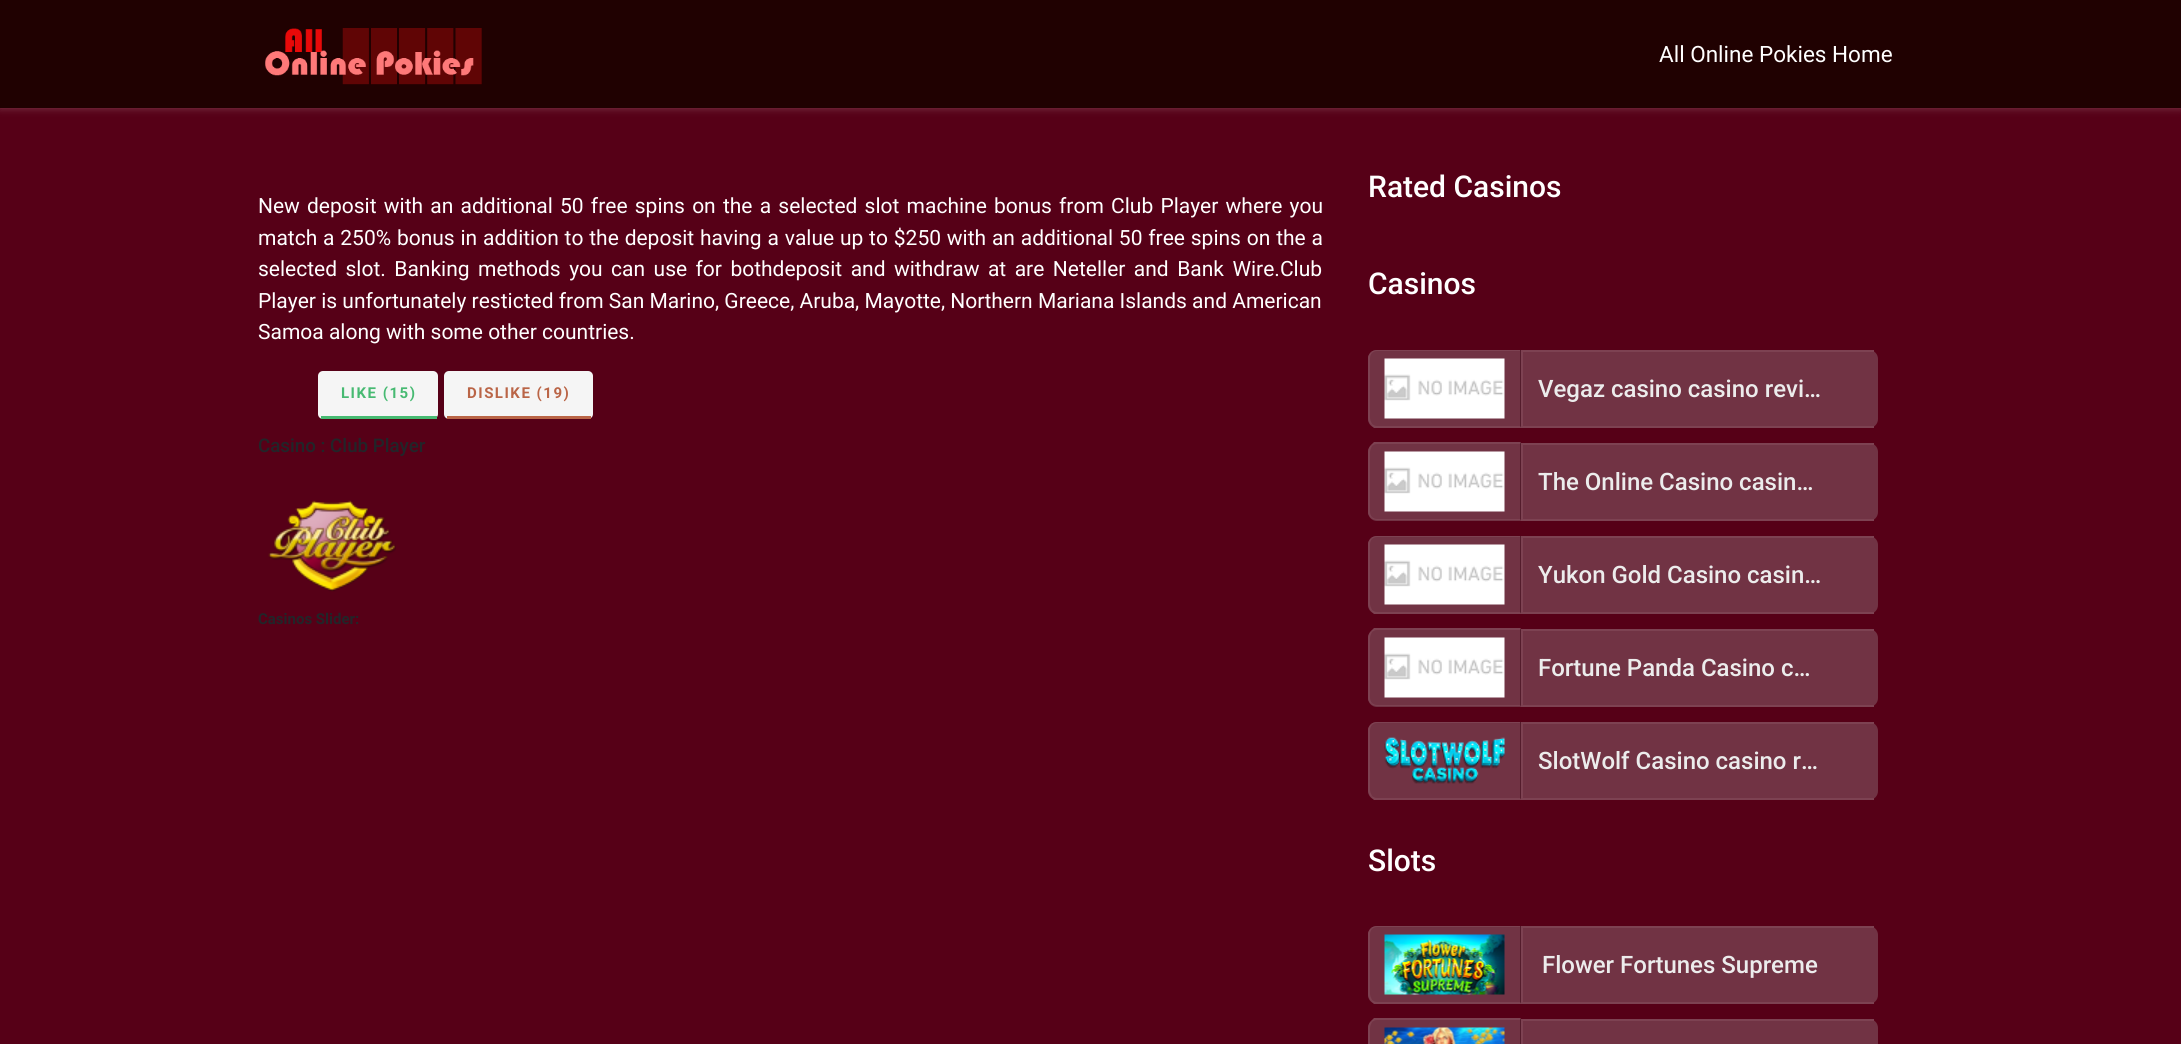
#include <cairo/cairo.h>
#include <math.h>
#include <stddef.h>

static cairo_t *cr;

static void use_color(int r, int g, int b) {
  cairo_set_source_rgb(cr, r / 255.0, g / 255.0, b / 255.0);
}

static void text(double x, double y, const char *s, const char *family, double size, int italic, int bold, int r, int g, int b) {
  cairo_select_font_face(cr, family, italic ? CAIRO_FONT_SLANT_ITALIC : CAIRO_FONT_SLANT_NORMAL,
    bold ? CAIRO_FONT_WEIGHT_BOLD : CAIRO_FONT_WEIGHT_NORMAL);
  cairo_set_font_size(cr, size);
  use_color(r, g, b);
  cairo_move_to(cr, x, y);
  cairo_show_text(cr, s);
}

static void spaced_text(double x, double y, const char *s, double letter, double word) {
  cairo_move_to(cr, x, y);
  while (*s) {
    char ch[5] = {0};
    int n = 0;
    do ch[n++] = *s++; while ((*s & 0xC0) == 0x80);
    cairo_show_text(cr, ch);
    cairo_rel_move_to(cr, letter + word * (*ch == ' '), 0);
  }
}

static void box(double x, double y, double w, double h, int r, int g, int b) {
  use_color(r, g, b);
  cairo_rectangle(cr, x, y, w, h);
  cairo_fill(cr);
}

static void round_rect(double x, double y, double w, double h, double r) {
  cairo_new_sub_path(cr);
  cairo_arc(cr, x + w - r, y + h - r, r, 0, M_PI / 2);
  cairo_arc(cr, x + r, y + h - r, r, M_PI / 2, M_PI);
  cairo_arc(cr, x + r, y + r, r, M_PI, 1.5 * M_PI);
  cairo_arc(cr, x + w - r, y + r, r, 1.5 * M_PI, 2 * M_PI);
  cairo_close_path(cr);
}

static void shadow(double x, double y, double w, double h, double r, double blur, double alpha) {
  cairo_push_group_with_content(cr, CAIRO_CONTENT_ALPHA);
  cairo_set_operator(cr, CAIRO_OPERATOR_SOURCE);
  for (int i = 15; i >= -15 && fmin(w, h) + blur * i / 3 > 0; i -= 2) {
    double e = blur * i / 6;
    cairo_set_source_rgba(cr, 0, 0, 0, alpha * erfc((i - 1) / 8.5) / 2);
    round_rect(x - e, y - e, w + 2 * e, h + 2 * e, fmax(0, fmin(r + e + blur * .6, fmin(w, h) / 2 + e)));
    cairo_fill(cr);
  }
  cairo_pattern_t *soft = cairo_pop_group(cr);
  cairo_mask(cr, soft);
  cairo_pattern_destroy(soft);
}

static void picture(const char *path, double x, double y, double w, double h) {
  cairo_surface_t *image = cairo_image_surface_create_from_png(path);
  cairo_save(cr);
  cairo_set_source_surface(cr, image, x, y);
  cairo_rectangle(cr, x, y, w, h);
  cairo_fill(cr);
  cairo_restore(cr);
  cairo_surface_destroy(image);
}

static void draw(void) {
  use_color(86, 0, 23);
  cairo_paint(cr);
  use_color(255, 255, 255);
  shadow(0, -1, 2181, 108, 0, 4.5, 0.3);
  box(0, 0, 2181, 108, 32, 1, 1);
  picture("img_01.png", 265, 28, 217, 57);
  use_color(245, 245, 245);
  round_rect(318, 371, 120, 48, 5);
  cairo_fill(cr);
  box(321, 416, 116, 3, 71, 186, 114);
  use_color(245, 245, 245);
  round_rect(444, 371, 149, 48, 5);
  cairo_fill(cr);
  box(447, 416, 144, 3, 186, 101, 71);
  picture("img_02.png", 268, 500, 128, 92);
  use_color(113, 51, 68);
  cairo_new_path(cr);
  cairo_move_to(cr, 1377, 350);
  cairo_line_to(cr, 1521, 350);
  cairo_line_to(cr, 1521, 428);
  cairo_line_to(cr, 1377, 428);
  cairo_curve_to(cr, 1372, 428, 1368, 424, 1368, 419);
  cairo_line_to(cr, 1368, 359);
  cairo_curve_to(cr, 1368, 354, 1372, 350, 1377, 350);
  cairo_close_path(cr);
  cairo_fill(cr);
  use_color(125, 66, 82);
  cairo_new_path(cr);
  cairo_move_to(cr, 1377, 350);
  cairo_curve_to(cr, 1375, 350, 1372, 351, 1371, 352);
  cairo_line_to(cr, 1372, 353);
  cairo_curve_to(cr, 1373, 352, 1375, 351, 1377, 351);
  cairo_line_to(cr, 1520, 351);
  cairo_line_to(cr, 1520, 350);
  cairo_close_path(cr);
  cairo_fill(cr);
  use_color(84, 28, 44);
  cairo_new_path(cr);
  cairo_move_to(cr, 1521, 428);
  cairo_line_to(cr, 1521, 350);
  cairo_line_to(cr, 1520, 350);
  cairo_line_to(cr, 1520, 351);
  cairo_line_to(cr, 1520, 426);
  cairo_close_path(cr);
  cairo_fill(cr);
  use_color(125, 66, 82);
  cairo_new_path(cr);
  cairo_move_to(cr, 1521, 428);
  cairo_line_to(cr, 1374, 428);
  cairo_line_to(cr, 1371, 425);
  cairo_line_to(cr, 1372, 424);
  cairo_curve_to(cr, 1373, 425, 1375, 426, 1377, 426);
  cairo_line_to(cr, 1520, 426);
  cairo_close_path(cr);
  cairo_fill(cr);
  cairo_new_path(cr);
  cairo_move_to(cr, 1368, 358);
  cairo_line_to(cr, 1368, 418);
  cairo_curve_to(cr, 1368, 420, 1369, 423, 1371, 425);
  cairo_line_to(cr, 1372, 424);
  cairo_curve_to(cr, 1371, 422, 1370, 420, 1370, 418);
  cairo_line_to(cr, 1370, 358);
  cairo_curve_to(cr, 1370, 356, 1371, 354, 1372, 353);
  cairo_line_to(cr, 1371, 352);
  cairo_curve_to(cr, 1369, 354, 1368, 356, 1368, 358);
  cairo_close_path(cr);
  cairo_fill(cr);
  picture("img_03.png", 1384, 358, 121, 61);
  use_color(113, 51, 68);
  cairo_new_path(cr);
  cairo_move_to(cr, 1521, 350);
  cairo_line_to(cr, 1869, 350);
  cairo_curve_to(cr, 1874, 350, 1878, 354, 1878, 359);
  cairo_line_to(cr, 1878, 419);
  cairo_curve_to(cr, 1878, 424, 1874, 428, 1869, 428);
  cairo_line_to(cr, 1521, 428);
  cairo_close_path(cr);
  cairo_fill(cr);
  box(1521, 350, 353, 2, 125, 66, 82);
  box(1521, 426, 353, 2, 125, 66, 82);
  box(1521, 350, 2, 78, 125, 66, 82);
  use_color(113, 51, 68);
  cairo_new_path(cr);
  cairo_move_to(cr, 1377, 443);
  cairo_line_to(cr, 1521, 443);
  cairo_line_to(cr, 1521, 521);
  cairo_line_to(cr, 1377, 521);
  cairo_curve_to(cr, 1372, 521, 1368, 517, 1368, 512);
  cairo_line_to(cr, 1368, 452);
  cairo_curve_to(cr, 1368, 447, 1372, 443, 1377, 443);
  cairo_close_path(cr);
  cairo_fill(cr);
  use_color(125, 66, 82);
  cairo_new_path(cr);
  cairo_move_to(cr, 1377, 444);
  cairo_curve_to(cr, 1375, 444, 1373, 445, 1372, 446);
  cairo_line_to(cr, 1371, 445);
  cairo_line_to(cr, 1374, 442);
  cairo_line_to(cr, 1521, 442);
  cairo_line_to(cr, 1520, 444);
  cairo_close_path(cr);
  cairo_fill(cr);
  use_color(84, 28, 44);
  cairo_new_path(cr);
  cairo_move_to(cr, 1521, 442);
  cairo_line_to(cr, 1520, 444);
  cairo_line_to(cr, 1520, 519);
  cairo_line_to(cr, 1521, 520);
  cairo_close_path(cr);
  cairo_fill(cr);
  use_color(125, 66, 82);
  cairo_new_path(cr);
  cairo_move_to(cr, 1520, 520);
  cairo_line_to(cr, 1377, 520);
  cairo_curve_to(cr, 1375, 520, 1372, 519, 1371, 518);
  cairo_line_to(cr, 1372, 517);
  cairo_curve_to(cr, 1373, 518, 1375, 519, 1377, 519);
  cairo_line_to(cr, 1520, 519);
  cairo_close_path(cr);
  cairo_fill(cr);
  cairo_new_path(cr);
  cairo_move_to(cr, 1368, 452);
  cairo_line_to(cr, 1368, 512);
  cairo_curve_to(cr, 1368, 514, 1369, 516, 1371, 518);
  cairo_line_to(cr, 1372, 517);
  cairo_curve_to(cr, 1371, 516, 1370, 514, 1370, 512);
  cairo_line_to(cr, 1370, 452);
  cairo_curve_to(cr, 1370, 450, 1371, 448, 1372, 446);
  cairo_line_to(cr, 1371, 445);
  cairo_curve_to(cr, 1369, 447, 1368, 450, 1368, 452);
  cairo_close_path(cr);
  cairo_fill(cr);
  picture("img_03.png", 1384, 451, 121, 61);
  use_color(113, 51, 68);
  cairo_new_path(cr);
  cairo_move_to(cr, 1521, 443);
  cairo_line_to(cr, 1869, 443);
  cairo_curve_to(cr, 1874, 443, 1878, 447, 1878, 452);
  cairo_line_to(cr, 1878, 512);
  cairo_curve_to(cr, 1878, 517, 1874, 521, 1869, 521);
  cairo_line_to(cr, 1521, 521);
  cairo_close_path(cr);
  cairo_fill(cr);
  box(1521, 443, 353, 2, 125, 66, 82);
  box(1521, 519, 353, 2, 125, 66, 82);
  box(1521, 443, 2, 78, 125, 66, 82);
  use_color(113, 51, 68);
  cairo_new_path(cr);
  cairo_move_to(cr, 1377, 536);
  cairo_line_to(cr, 1521, 536);
  cairo_line_to(cr, 1521, 614);
  cairo_line_to(cr, 1377, 614);
  cairo_curve_to(cr, 1372, 614, 1368, 610, 1368, 605);
  cairo_line_to(cr, 1368, 545);
  cairo_curve_to(cr, 1368, 540, 1372, 536, 1377, 536);
  cairo_close_path(cr);
  cairo_fill(cr);
  use_color(125, 66, 82);
  cairo_new_path(cr);
  cairo_move_to(cr, 1377, 536);
  cairo_curve_to(cr, 1375, 536, 1372, 537, 1371, 538);
  cairo_line_to(cr, 1372, 539);
  cairo_curve_to(cr, 1373, 538, 1375, 537, 1377, 537);
  cairo_line_to(cr, 1520, 537);
  cairo_line_to(cr, 1520, 536);
  cairo_close_path(cr);
  cairo_fill(cr);
  use_color(84, 28, 44);
  cairo_new_path(cr);
  cairo_move_to(cr, 1521, 614);
  cairo_line_to(cr, 1521, 536);
  cairo_line_to(cr, 1520, 536);
  cairo_line_to(cr, 1520, 537);
  cairo_line_to(cr, 1520, 612);
  cairo_close_path(cr);
  cairo_fill(cr);
  use_color(125, 66, 82);
  cairo_new_path(cr);
  cairo_move_to(cr, 1521, 614);
  cairo_line_to(cr, 1374, 614);
  cairo_line_to(cr, 1371, 611);
  cairo_line_to(cr, 1372, 610);
  cairo_curve_to(cr, 1373, 611, 1375, 612, 1377, 612);
  cairo_line_to(cr, 1520, 612);
  cairo_close_path(cr);
  cairo_fill(cr);
  cairo_new_path(cr);
  cairo_move_to(cr, 1368, 544);
  cairo_line_to(cr, 1368, 604);
  cairo_curve_to(cr, 1368, 606, 1369, 609, 1371, 611);
  cairo_line_to(cr, 1372, 610);
  cairo_curve_to(cr, 1371, 608, 1370, 606, 1370, 604);
  cairo_line_to(cr, 1370, 544);
  cairo_curve_to(cr, 1370, 542, 1371, 540, 1372, 539);
  cairo_line_to(cr, 1371, 538);
  cairo_curve_to(cr, 1369, 540, 1368, 542, 1368, 544);
  cairo_close_path(cr);
  cairo_fill(cr);
  picture("img_03.png", 1384, 544, 121, 61);
  use_color(113, 51, 68);
  cairo_new_path(cr);
  cairo_move_to(cr, 1521, 536);
  cairo_line_to(cr, 1869, 536);
  cairo_curve_to(cr, 1874, 536, 1878, 540, 1878, 545);
  cairo_line_to(cr, 1878, 605);
  cairo_curve_to(cr, 1878, 610, 1874, 614, 1869, 614);
  cairo_line_to(cr, 1521, 614);
  cairo_close_path(cr);
  cairo_fill(cr);
  box(1521, 536, 353, 2, 125, 66, 82);
  box(1521, 612, 353, 2, 125, 66, 82);
  box(1521, 536, 2, 78, 125, 66, 82);
  use_color(113, 51, 68);
  cairo_new_path(cr);
  cairo_move_to(cr, 1377, 629);
  cairo_line_to(cr, 1521, 629);
  cairo_line_to(cr, 1521, 707);
  cairo_line_to(cr, 1377, 707);
  cairo_curve_to(cr, 1372, 707, 1368, 703, 1368, 698);
  cairo_line_to(cr, 1368, 638);
  cairo_curve_to(cr, 1368, 633, 1372, 629, 1377, 629);
  cairo_close_path(cr);
  cairo_fill(cr);
  use_color(125, 66, 82);
  cairo_new_path(cr);
  cairo_move_to(cr, 1377, 630);
  cairo_curve_to(cr, 1375, 630, 1373, 631, 1372, 632);
  cairo_line_to(cr, 1371, 631);
  cairo_line_to(cr, 1374, 628);
  cairo_line_to(cr, 1521, 628);
  cairo_line_to(cr, 1520, 630);
  cairo_close_path(cr);
  cairo_fill(cr);
  use_color(84, 28, 44);
  cairo_new_path(cr);
  cairo_move_to(cr, 1521, 628);
  cairo_line_to(cr, 1520, 630);
  cairo_line_to(cr, 1520, 705);
  cairo_line_to(cr, 1521, 706);
  cairo_close_path(cr);
  cairo_fill(cr);
  use_color(125, 66, 82);
  cairo_new_path(cr);
  cairo_move_to(cr, 1520, 706);
  cairo_line_to(cr, 1377, 706);
  cairo_curve_to(cr, 1375, 706, 1372, 705, 1371, 704);
  cairo_line_to(cr, 1372, 703);
  cairo_curve_to(cr, 1373, 704, 1375, 705, 1377, 705);
  cairo_line_to(cr, 1520, 705);
  cairo_close_path(cr);
  cairo_fill(cr);
  cairo_new_path(cr);
  cairo_move_to(cr, 1368, 638);
  cairo_line_to(cr, 1368, 698);
  cairo_curve_to(cr, 1368, 700, 1369, 702, 1371, 704);
  cairo_line_to(cr, 1372, 703);
  cairo_curve_to(cr, 1371, 702, 1370, 700, 1370, 698);
  cairo_line_to(cr, 1370, 638);
  cairo_curve_to(cr, 1370, 636, 1371, 634, 1372, 632);
  cairo_line_to(cr, 1371, 631);
  cairo_curve_to(cr, 1369, 633, 1368, 636, 1368, 638);
  cairo_close_path(cr);
  cairo_fill(cr);
  picture("img_03.png", 1384, 637, 121, 61);
  use_color(113, 51, 68);
  cairo_new_path(cr);
  cairo_move_to(cr, 1521, 629);
  cairo_line_to(cr, 1869, 629);
  cairo_curve_to(cr, 1874, 629, 1878, 633, 1878, 638);
  cairo_line_to(cr, 1878, 698);
  cairo_curve_to(cr, 1878, 703, 1874, 707, 1869, 707);
  cairo_line_to(cr, 1521, 707);
  cairo_close_path(cr);
  cairo_fill(cr);
  box(1521, 629, 353, 2, 125, 66, 82);
  box(1521, 705, 353, 2, 125, 66, 82);
  box(1521, 629, 2, 78, 125, 66, 82);
  use_color(113, 51, 68);
  cairo_new_path(cr);
  cairo_move_to(cr, 1377, 722);
  cairo_line_to(cr, 1521, 722);
  cairo_line_to(cr, 1521, 800);
  cairo_line_to(cr, 1377, 800);
  cairo_curve_to(cr, 1372, 800, 1368, 796, 1368, 791);
  cairo_line_to(cr, 1368, 731);
  cairo_curve_to(cr, 1368, 726, 1372, 722, 1377, 722);
  cairo_close_path(cr);
  cairo_fill(cr);
  use_color(125, 66, 82);
  cairo_new_path(cr);
  cairo_move_to(cr, 1377, 722);
  cairo_curve_to(cr, 1375, 722, 1372, 723, 1371, 724);
  cairo_line_to(cr, 1372, 725);
  cairo_curve_to(cr, 1373, 724, 1375, 723, 1377, 723);
  cairo_line_to(cr, 1520, 723);
  cairo_line_to(cr, 1520, 722);
  cairo_close_path(cr);
  cairo_fill(cr);
  use_color(84, 28, 44);
  cairo_new_path(cr);
  cairo_move_to(cr, 1521, 800);
  cairo_line_to(cr, 1521, 722);
  cairo_line_to(cr, 1520, 722);
  cairo_line_to(cr, 1520, 723);
  cairo_line_to(cr, 1520, 798);
  cairo_close_path(cr);
  cairo_fill(cr);
  use_color(125, 66, 82);
  cairo_new_path(cr);
  cairo_move_to(cr, 1521, 800);
  cairo_line_to(cr, 1374, 800);
  cairo_line_to(cr, 1371, 797);
  cairo_line_to(cr, 1372, 796);
  cairo_curve_to(cr, 1373, 797, 1375, 798, 1377, 798);
  cairo_line_to(cr, 1520, 798);
  cairo_close_path(cr);
  cairo_fill(cr);
  cairo_new_path(cr);
  cairo_move_to(cr, 1368, 730);
  cairo_line_to(cr, 1368, 790);
  cairo_curve_to(cr, 1368, 792, 1369, 795, 1371, 797);
  cairo_line_to(cr, 1372, 796);
  cairo_curve_to(cr, 1371, 794, 1370, 792, 1370, 790);
  cairo_line_to(cr, 1370, 730);
  cairo_curve_to(cr, 1370, 728, 1371, 726, 1372, 725);
  cairo_line_to(cr, 1371, 724);
  cairo_curve_to(cr, 1369, 726, 1368, 728, 1368, 730);
  cairo_close_path(cr);
  cairo_fill(cr);
  picture("img_04.png", 1384, 737, 121, 47);
  use_color(113, 51, 68);
  cairo_new_path(cr);
  cairo_move_to(cr, 1521, 722);
  cairo_line_to(cr, 1869, 722);
  cairo_curve_to(cr, 1874, 722, 1878, 726, 1878, 731);
  cairo_line_to(cr, 1878, 791);
  cairo_curve_to(cr, 1878, 796, 1874, 800, 1869, 800);
  cairo_line_to(cr, 1521, 800);
  cairo_close_path(cr);
  cairo_fill(cr);
  box(1521, 722, 353, 2, 125, 66, 82);
  box(1521, 798, 353, 2, 125, 66, 82);
  box(1521, 722, 2, 78, 125, 66, 82);
  use_color(113, 51, 68);
  cairo_new_path(cr);
  cairo_move_to(cr, 1377, 926);
  cairo_line_to(cr, 1521, 926);
  cairo_line_to(cr, 1521, 1004);
  cairo_line_to(cr, 1377, 1004);
  cairo_curve_to(cr, 1372, 1004, 1368, 1000, 1368, 995);
  cairo_line_to(cr, 1368, 935);
  cairo_curve_to(cr, 1368, 930, 1372, 926, 1377, 926);
  cairo_close_path(cr);
  cairo_fill(cr);
  use_color(125, 66, 82);
  cairo_new_path(cr);
  cairo_move_to(cr, 1377, 926);
  cairo_curve_to(cr, 1375, 926, 1372, 927, 1371, 928);
  cairo_line_to(cr, 1372, 929);
  cairo_curve_to(cr, 1373, 928, 1375, 927, 1377, 927);
  cairo_line_to(cr, 1520, 927);
  cairo_line_to(cr, 1520, 926);
  cairo_close_path(cr);
  cairo_fill(cr);
  use_color(84, 28, 44);
  cairo_new_path(cr);
  cairo_move_to(cr, 1521, 1004);
  cairo_line_to(cr, 1521, 926);
  cairo_line_to(cr, 1520, 926);
  cairo_line_to(cr, 1520, 927);
  cairo_line_to(cr, 1520, 1002);
  cairo_close_path(cr);
  cairo_fill(cr);
  use_color(125, 66, 82);
  cairo_new_path(cr);
  cairo_move_to(cr, 1521, 1004);
  cairo_line_to(cr, 1374, 1004);
  cairo_line_to(cr, 1371, 1001);
  cairo_line_to(cr, 1372, 1000);
  cairo_curve_to(cr, 1373, 1001, 1375, 1002, 1377, 1002);
  cairo_line_to(cr, 1520, 1002);
  cairo_close_path(cr);
  cairo_fill(cr);
  cairo_new_path(cr);
  cairo_move_to(cr, 1368, 934);
  cairo_line_to(cr, 1368, 994);
  cairo_curve_to(cr, 1368, 996, 1369, 999, 1371, 1001);
  cairo_line_to(cr, 1372, 1000);
  cairo_curve_to(cr, 1371, 998, 1370, 996, 1370, 994);
  cairo_line_to(cr, 1370, 934);
  cairo_curve_to(cr, 1370, 932, 1371, 930, 1372, 929);
  cairo_line_to(cr, 1371, 928);
  cairo_curve_to(cr, 1369, 930, 1368, 932, 1368, 934);
  cairo_close_path(cr);
  cairo_fill(cr);
  picture("img_05.png", 1384, 934, 121, 61);
  use_color(113, 51, 68);
  cairo_new_path(cr);
  cairo_move_to(cr, 1521, 926);
  cairo_line_to(cr, 1869, 926);
  cairo_curve_to(cr, 1874, 926, 1878, 930, 1878, 935);
  cairo_line_to(cr, 1878, 995);
  cairo_curve_to(cr, 1878, 1000, 1874, 1004, 1869, 1004);
  cairo_line_to(cr, 1521, 1004);
  cairo_close_path(cr);
  cairo_fill(cr);
  box(1521, 926, 353, 2, 125, 66, 82);
  box(1521, 1002, 353, 2, 125, 66, 82);
  box(1521, 926, 2, 78, 125, 66, 82);
  use_color(113, 51, 68);
  cairo_new_path(cr);
  cairo_move_to(cr, 1377, 1019);
  cairo_line_to(cr, 1521, 1019);
  cairo_line_to(cr, 1521, 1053);
  cairo_line_to(cr, 1377, 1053);
  cairo_curve_to(cr, 1372, 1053, 1368, 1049, 1368, 1044);
  cairo_line_to(cr, 1368, 1028);
  cairo_curve_to(cr, 1368, 1023, 1372, 1019, 1377, 1019);
  cairo_close_path(cr);
  cairo_fill(cr);
  use_color(125, 66, 82);
  cairo_new_path(cr);
  cairo_move_to(cr, 1377, 1020);
  cairo_curve_to(cr, 1375, 1020, 1373, 1021, 1372, 1022);
  cairo_line_to(cr, 1371, 1021);
  cairo_line_to(cr, 1374, 1018);
  cairo_line_to(cr, 1521, 1018);
  cairo_line_to(cr, 1520, 1020);
  cairo_close_path(cr);
  cairo_fill(cr);
  use_color(84, 28, 44);
  cairo_new_path(cr);
  cairo_move_to(cr, 1521, 1018);
  cairo_line_to(cr, 1520, 1020);
  cairo_line_to(cr, 1520, 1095);
  cairo_line_to(cr, 1521, 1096);
  cairo_close_path(cr);
  cairo_fill(cr);
  use_color(125, 66, 82);
  cairo_new_path(cr);
  cairo_move_to(cr, 1368, 1028);
  cairo_line_to(cr, 1368, 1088);
  cairo_curve_to(cr, 1368, 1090, 1369, 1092, 1371, 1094);
  cairo_line_to(cr, 1372, 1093);
  cairo_curve_to(cr, 1371, 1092, 1370, 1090, 1370, 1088);
  cairo_line_to(cr, 1370, 1028);
  cairo_curve_to(cr, 1370, 1026, 1371, 1024, 1372, 1022);
  cairo_line_to(cr, 1371, 1021);
  cairo_curve_to(cr, 1369, 1023, 1368, 1026, 1368, 1028);
  cairo_close_path(cr);
  cairo_fill(cr);
  picture("img_06.png", 1384, 1027, 121, 17);
  use_color(113, 51, 68);
  cairo_new_path(cr);
  cairo_move_to(cr, 1521, 1019);
  cairo_line_to(cr, 1869, 1019);
  cairo_curve_to(cr, 1874, 1019, 1878, 1023, 1878, 1028);
  cairo_line_to(cr, 1878, 1044);
  cairo_curve_to(cr, 1878, 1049, 1874, 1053, 1869, 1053);
  cairo_line_to(cr, 1521, 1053);
  cairo_close_path(cr);
  cairo_fill(cr);
  box(1521, 1019, 353, 2, 125, 66, 82);
  box(1521, 1019, 2, 25, 125, 66, 82);
  text(1659, 62, "All Online Pokies Home", "Roboto", 22.5, 0, 0, 255, 255, 255);
  text(258, 213, "New", "Roboto", 21, 0, 0, 255, 255, 255);
  spaced_text(307, 213, "deposit with an additional 50 free spins on the a selected slot machine bonus", 0, 2);
  spaced_text(1059, 213, "from Club Player where you", 0, 2);
  spaced_text(258, 245, "match a 250% bonus in addition to the deposit having a value up to $250 with an additional 50 free spins on the a", 0, 0.6);
  spaced_text(258, 276, "selected slot. Banking methods you can use for bothdeposit and withdraw at are Neteller and Bank Wire.Club", 0, 3.25);
  text(258, 308, "Player is unfortunately resticted from San Marino, Greece, Aruba, Mayotte, Northern Mariana Islands and American", "Roboto", 21, 0, 0, 255, 255, 255);
  text(258, 339, "Samoa along with some other countries.", "Roboto", 21, 0, 0, 255, 255, 255);
  cairo_select_font_face(cr, "Roboto", CAIRO_FONT_SLANT_NORMAL, CAIRO_FONT_WEIGHT_BOLD);
  cairo_set_font_size(cr, 15);
  use_color(71, 186, 114);
  spaced_text(341, 398, "LIKE (15)", 1.5, 0);
  use_color(186, 101, 71);
  spaced_text(467, 398, "DISLIKE (19)", 1.5, 0);
  text(258, 452, "Casino : Club Player", "Roboto Medium", 18.75, 0, 0, 33, 37, 41);
  text(258, 624, "Casinos Slider:", "Roboto", 15, 0, 1, 33, 37, 41);
  text(1368, 197, "Rated Casinos", "Roboto Medium", 30, 0, 0, 255, 255, 255);
  text(1368, 294, "Casinos", "Roboto Medium", 30, 0, 0, 255, 255, 255);
  text(1538, 397, "Vegaz casino casino revi…", "Roboto Medium", 24, 0, 0, 236, 236, 236);
  text(1538, 490, "The Online Casino casin…", "Roboto Medium", 24, 0, 0, 236, 236, 236);
  text(1538, 583, "Yukon Gold Casino casin…", "Roboto Medium", 24, 0, 0, 236, 236, 236);
  text(1538, 676, "Fortune Panda Casino c…", "Roboto Medium", 24, 0, 0, 236, 236, 236);
  text(1538, 769, "SlotWolf Casino casino r…", "Roboto Medium", 24, 0, 0, 236, 236, 236);
  text(1368, 871, "Slots", "Roboto Medium", 30, 0, 0, 255, 255, 255);
  text(1542, 973, "Flower Fortunes Supreme", "Roboto Medium", 24, 0, 0, 236, 236, 236);
}

int main(void) {
  cairo_surface_t *surface = cairo_image_surface_create(CAIRO_FORMAT_RGB24, 2181, 1044);
  cr = cairo_create(surface);
  cairo_font_options_t *options = cairo_font_options_create();
  cairo_font_options_set_hint_metrics(options, CAIRO_HINT_METRICS_OFF);
  cairo_font_options_set_hint_style(options, CAIRO_HINT_STYLE_NONE);
  cairo_set_font_options(cr, options);
  cairo_set_miter_limit(cr, 4);
  draw();
  cairo_surface_write_to_png(surface, "out.png");
  cairo_font_options_destroy(options);
  cairo_destroy(cr);
  cairo_surface_destroy(surface);
  return 0;
}
